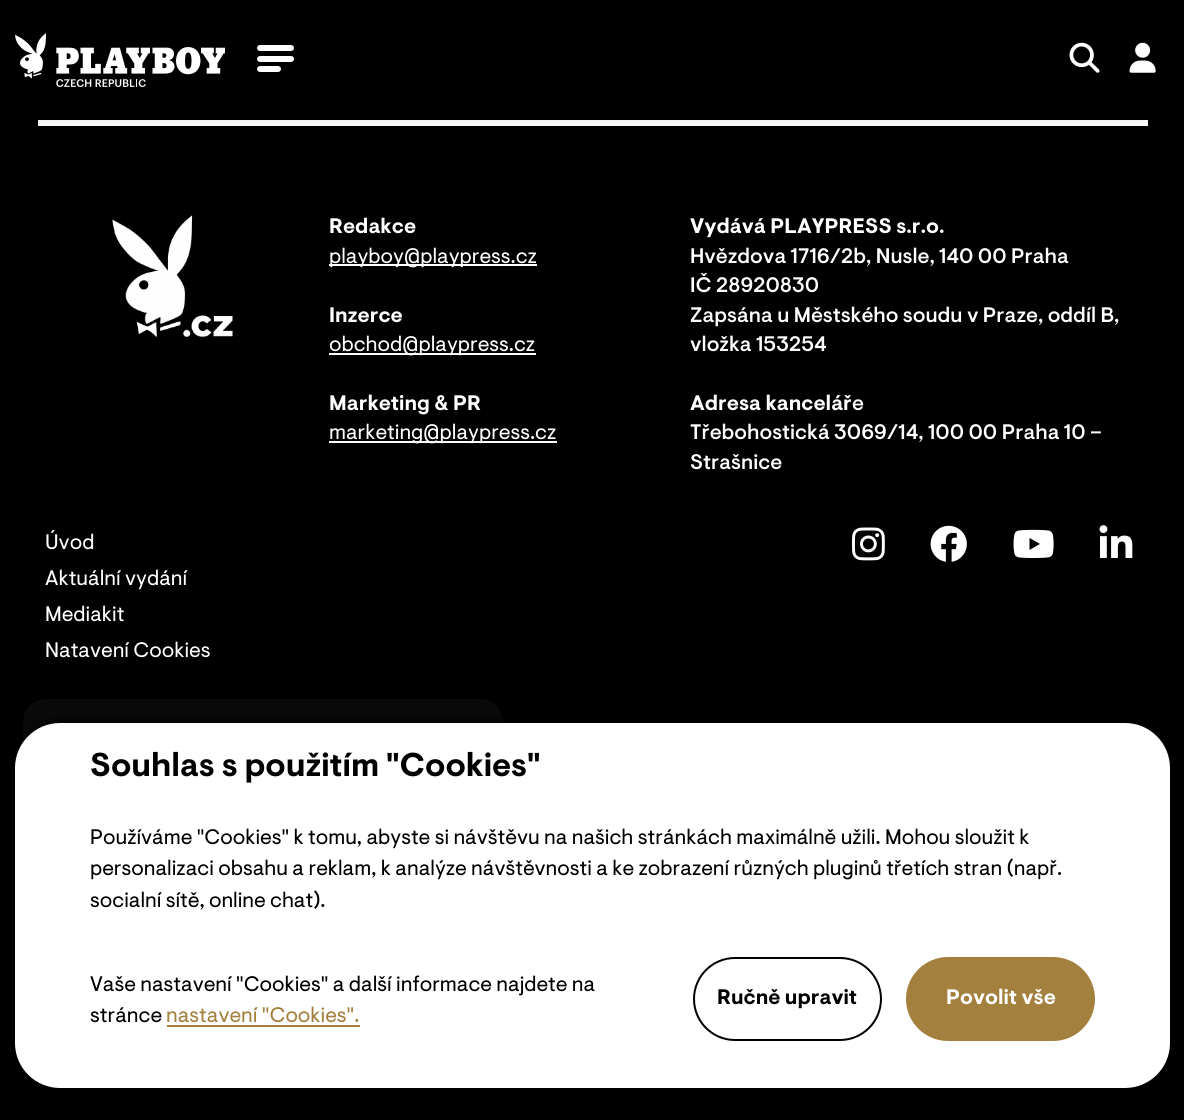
#include <cairo/cairo.h>
#include <math.h>
#include <stddef.h>

static cairo_t *cr;

static void use_color(int r, int g, int b) {
  cairo_set_source_rgb(cr, r / 255.0, g / 255.0, b / 255.0);
}

static void text(double x, double y, const char *s, const char *family, double size, int italic, int bold, int r, int g, int b) {
  cairo_select_font_face(cr, family, italic ? CAIRO_FONT_SLANT_ITALIC : CAIRO_FONT_SLANT_NORMAL,
    bold ? CAIRO_FONT_WEIGHT_BOLD : CAIRO_FONT_WEIGHT_NORMAL);
  cairo_set_font_size(cr, size);
  use_color(r, g, b);
  cairo_move_to(cr, x, y);
  cairo_show_text(cr, s);
}

static void box(double x, double y, double w, double h, int r, int g, int b) {
  use_color(r, g, b);
  cairo_rectangle(cr, x, y, w, h);
  cairo_fill(cr);
}

static void round_rect(double x, double y, double w, double h, double r) {
  cairo_new_sub_path(cr);
  cairo_arc(cr, x + w - r, y + h - r, r, 0, M_PI / 2);
  cairo_arc(cr, x + r, y + h - r, r, M_PI / 2, M_PI);
  cairo_arc(cr, x + r, y + r, r, M_PI, 1.5 * M_PI);
  cairo_arc(cr, x + w - r, y + r, r, 1.5 * M_PI, 2 * M_PI);
  cairo_close_path(cr);
}

static void shadow(double x, double y, double w, double h, double r, double blur, double alpha) {
  cairo_push_group_with_content(cr, CAIRO_CONTENT_ALPHA);
  cairo_set_operator(cr, CAIRO_OPERATOR_SOURCE);
  for (int i = 15; i >= -15 && fmin(w, h) + blur * i / 3 > 0; i -= 2) {
    double e = blur * i / 6;
    cairo_set_source_rgba(cr, 0, 0, 0, alpha * erfc((i - 1) / 8.5) / 2);
    round_rect(x - e, y - e, w + 2 * e, h + 2 * e, fmax(0, fmin(r + e + blur * .6, fmin(w, h) / 2 + e)));
    cairo_fill(cr);
  }
  cairo_pattern_t *soft = cairo_pop_group(cr);
  cairo_mask(cr, soft);
  cairo_pattern_destroy(soft);
}

static void picture(const char *path, double x, double y, double w, double h) {
  cairo_surface_t *image = cairo_image_surface_create_from_png(path);
  cairo_save(cr);
  cairo_set_source_surface(cr, image, x, y);
  cairo_rectangle(cr, x, y, w, h);
  cairo_fill(cr);
  cairo_restore(cr);
  cairo_surface_destroy(image);
}

static void draw(void) {
  use_color(0, 0, 0);
  cairo_paint(cr);
  box(38, 120, 1110, 6, 255, 255, 255);
  use_color(0, 0, 0);
  shadow(0, 0, 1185, 120, 0, 7.5, 0.1);
  picture("img_01.png", 15, 33, 210, 54);
  use_color(255, 255, 255);
  round_rect(257, 45, 37, 6, 3);
  cairo_fill(cr);
  round_rect(257, 56, 37, 6, 3);
  cairo_fill(cr);
  round_rect(257, 66, 24, 6, 3);
  cairo_fill(cr);
  picture("img_02.png", 1069, 42, 31, 31);
  picture("img_03.png", 1129, 42, 27, 31);
  picture("img_04.png", 112, 215, 121, 122);
  box(329, 264, 208, 2, 255, 255, 255);
  box(329, 353, 207, 2, 255, 255, 255);
  box(329, 441, 228, 2, 255, 255, 255);
  use_color(10, 10, 10);
  round_rect(23, 699, 480, 242, 23);
  cairo_fill(cr);
  picture("img_05.png", 852, 527, 33, 34);
  picture("img_06.png", 930, 525, 37, 37);
  picture("img_07.png", 1013, 529, 41, 29);
  picture("img_08.png", 1099, 525, 34, 33);
  use_color(0, 0, 0);
  shadow(15, 723, 1155, 365, 45, 7.5, 1);
  use_color(255, 255, 255);
  round_rect(15, 723, 1155, 365, 45);
  cairo_fill(cr);
  box(167, 1025, 193, 2, 163, 128, 61);
  round_rect(694, 958, 187, 82, 41);
  use_color(0, 0, 0);
  cairo_stroke(cr);
  use_color(163, 128, 61);
  round_rect(906, 957, 189, 84, 42);
  cairo_fill(cr);
  text(329, 233, "Redakce", "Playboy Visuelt", 21, 0, 1, 255, 255, 255);
  text(329, 263, "playboy@playpress.cz", "Playboy Visuelt", 21, 0, 0, 255, 255, 255);
  text(329, 322, "Inzerce", "Playboy Visuelt", 21, 0, 1, 255, 255, 255);
  text(329, 351, "obchod@playpress.cz", "Playboy Visuelt", 21, 0, 0, 255, 255, 255);
  text(329, 410, "Marketing & PR", "Playboy Visuelt", 21, 0, 1, 255, 255, 255);
  text(329, 439, "marketing@playpress.cz", "Playboy Visuelt", 21, 0, 0, 255, 255, 255);
  text(690, 233, "Vydává PLAYPRESS s.r.o.", "Playboy Visuelt", 21, 0, 1, 255, 255, 255);
  text(690, 263, "Hvězdova 1716/2b, Nusle, 140 00 Praha", "Playboy Visuelt Medium", 21, 0, 0, 255, 255, 255);
  text(690, 292, "IČ 28920830", "Playboy Visuelt Medium", 21, 0, 0, 255, 255, 255);
  text(690, 322, "Zapsána u Městského soudu v Praze, oddíl B,", "Playboy Visuelt Medium", 21, 0, 0, 255, 255, 255);
  text(690, 351, "vložka 153254", "Playboy Visuelt Medium", 21, 0, 0, 255, 255, 255);
  text(690, 410, "Adresa kancelář", "Playboy Visuelt", 21, 0, 1, 255, 255, 255);
  text(852, 410, "e", "Playboy Visuelt Medium", 21, 0, 0, 255, 255, 255);
  text(690, 439, "Třebohostická 3069/14, 100 00 Praha 10 –", "Playboy Visuelt Medium", 21, 0, 0, 255, 255, 255);
  text(690, 469, "Strašnice", "Playboy Visuelt Medium", 21, 0, 0, 255, 255, 255);
  text(45, 549, "Úvod", "Playboy Visuelt", 21, 0, 0, 255, 255, 255);
  text(45, 585, "Aktuální vydání", "Playboy Visuelt", 21, 0, 0, 255, 255, 255);
  text(45, 621, "Mediakit", "Playboy Visuelt", 21, 0, 0, 255, 255, 255);
  text(45, 657, "Natavení Cookies", "Playboy Visuelt", 21, 0, 0, 255, 255, 255);
  text(90, 776, "Souhlas s použitím \"Cookies\"", "Playboy Visuelt", 33, 0, 1, 0, 0, 0);
  text(90, 844, "Používáme \"Cookies\" k tomu, abyste si návštěvu na našich stránkách maximálně užili. Mohou sloužit k", "Playboy Visuelt", 21, 0, 0, 0, 0, 0);
  text(90, 875, "personalizaci obsahu a reklam, k analýze návštěvnosti a ke zobrazení různých pluginů třetích stran (např.", "Playboy Visuelt", 21, 0, 0, 0, 0, 0);
  text(90, 907, "socialní sítě, online chat).", "Playboy Visuelt", 21, 0, 0, 0, 0, 0);
  text(90, 991, "Vaše nastavení \"Cookies\" a další informace najdete na", "Playboy Visuelt", 21, 0, 0, 0, 0, 0);
  text(90, 1022, "stránce", "Playboy Visuelt", 21, 0, 0, 0, 0, 0);
  text(166, 1022, "nastavení \"Cookies\".", "Playboy Visuelt", 21, 0, 0, 163, 128, 61);
  text(717, 1004, "Ručně upravit", "Playboy Visuelt", 21, 0, 1, 0, 0, 0);
  text(946, 1004, "Povolit vše", "Playboy Visuelt", 21, 0, 1, 255, 255, 255);
}

int main(void) {
  cairo_surface_t *surface = cairo_image_surface_create(CAIRO_FORMAT_RGB24, 1184, 1120);
  cr = cairo_create(surface);
  cairo_font_options_t *options = cairo_font_options_create();
  cairo_font_options_set_hint_metrics(options, CAIRO_HINT_METRICS_OFF);
  cairo_font_options_set_hint_style(options, CAIRO_HINT_STYLE_NONE);
  cairo_set_font_options(cr, options);
  cairo_set_miter_limit(cr, 4);
  draw();
  cairo_surface_write_to_png(surface, "out.png");
  cairo_font_options_destroy(options);
  cairo_destroy(cr);
  cairo_surface_destroy(surface);
  return 0;
}
